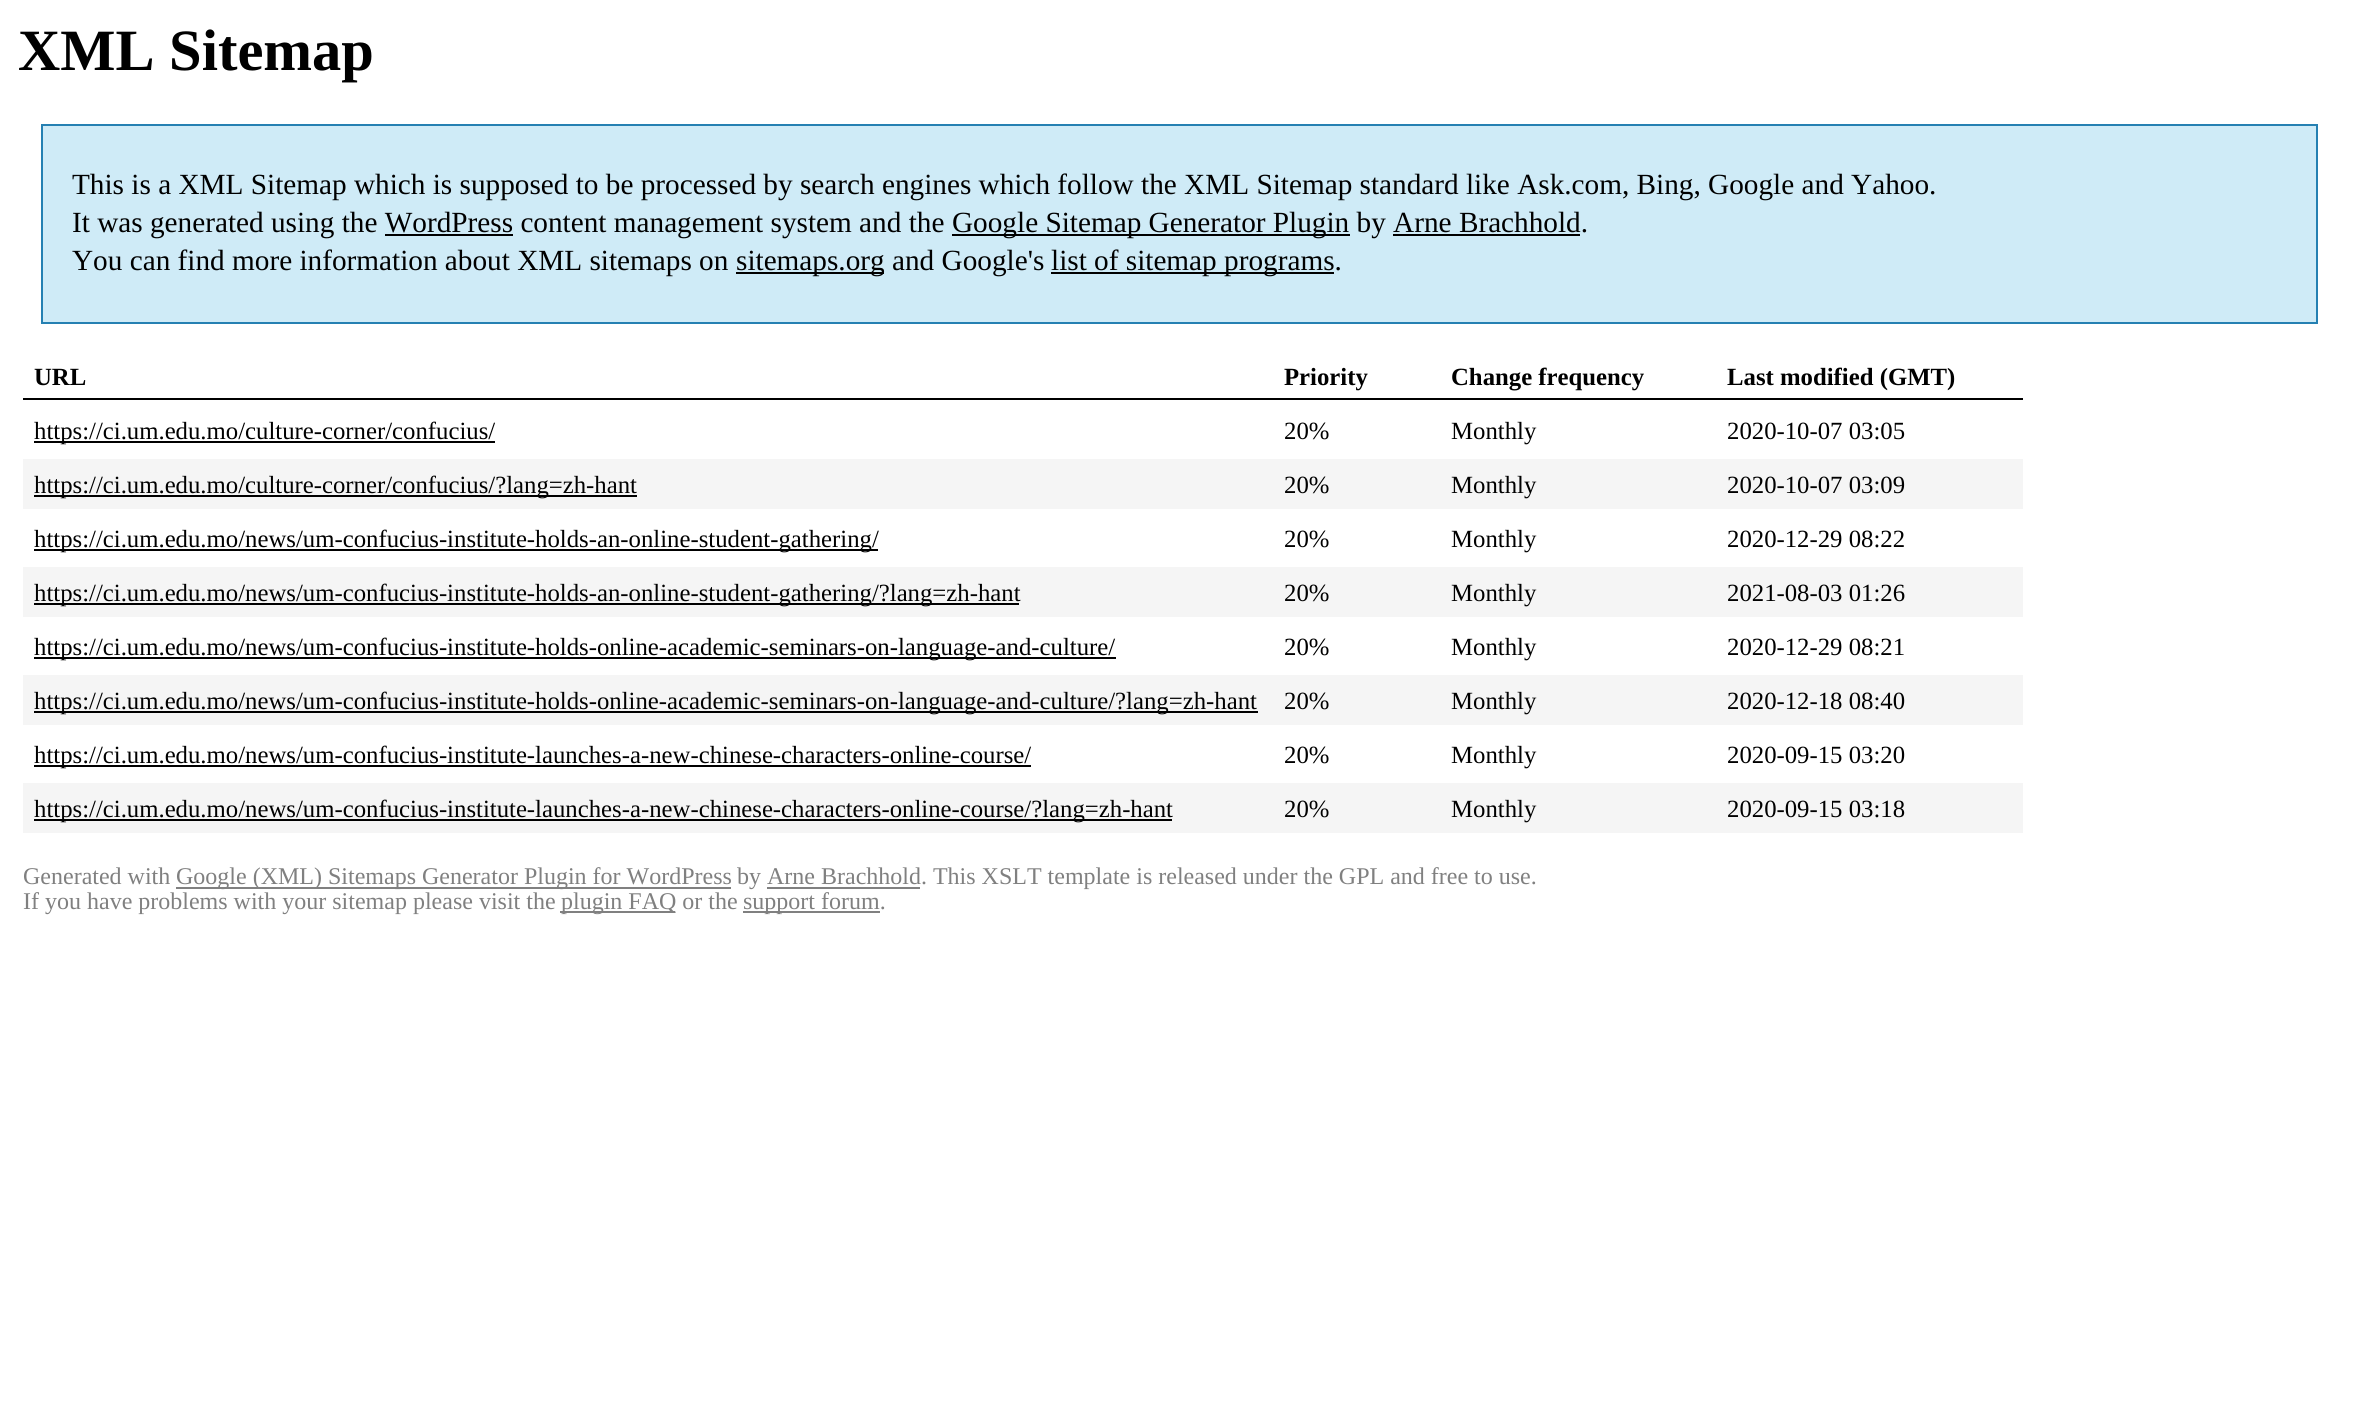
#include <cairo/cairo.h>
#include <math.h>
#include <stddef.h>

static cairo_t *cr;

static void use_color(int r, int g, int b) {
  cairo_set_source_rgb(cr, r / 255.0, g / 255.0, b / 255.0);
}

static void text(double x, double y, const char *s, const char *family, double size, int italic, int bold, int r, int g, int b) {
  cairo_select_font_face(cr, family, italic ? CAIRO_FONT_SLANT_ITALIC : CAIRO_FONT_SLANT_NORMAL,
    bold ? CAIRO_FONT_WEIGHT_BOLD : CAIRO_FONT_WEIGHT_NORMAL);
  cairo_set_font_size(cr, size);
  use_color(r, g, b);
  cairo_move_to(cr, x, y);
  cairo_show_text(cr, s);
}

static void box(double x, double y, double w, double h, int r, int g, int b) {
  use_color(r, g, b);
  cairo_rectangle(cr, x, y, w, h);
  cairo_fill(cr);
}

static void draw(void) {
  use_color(255, 255, 255);
  cairo_paint(cr);
  use_color(207, 235, 247);
  cairo_rectangle(cr, 42, 125, 2275, 198);
  cairo_fill_preserve(cr);
  use_color(37, 128, 178);
  cairo_stroke(cr);
  box(952, 234, 398, 2, 0, 0, 0);
  box(385, 234, 128, 2, 0, 0, 0);
  box(1393, 234, 187, 2, 0, 0, 0);
  box(736, 272, 148, 2, 0, 0, 0);
  box(1051, 272, 283, 2, 0, 0, 0);
  box(23, 398, 2000, 2, 0, 0, 0);
  box(34, 441, 461, 2, 0, 0, 0);
  box(23, 459, 2000, 50, 245, 245, 245);
  box(34, 495, 603, 2, 0, 0, 0);
  box(34, 549, 844, 2, 0, 0, 0);
  box(23, 567, 2000, 50, 245, 245, 245);
  box(34, 603, 985, 2, 0, 0, 0);
  box(34, 657, 1082, 2, 0, 0, 0);
  box(23, 675, 2000, 50, 245, 245, 245);
  box(34, 711, 1224, 2, 0, 0, 0);
  box(34, 765, 997, 2, 0, 0, 0);
  box(23, 783, 2000, 50, 245, 245, 245);
  box(34, 819, 1138, 2, 0, 0, 0);
  box(176, 887, 555, 2, 128, 128, 128);
  box(767, 887, 153, 2, 128, 128, 128);
  box(560, 911, 115, 2, 128, 128, 128);
  box(743, 911, 137, 2, 128, 128, 128);
  text(18, 70, "XML Sitemap", "Liberation Serif", 58.5, 0, 1, 0, 0, 0);
  text(72, 194, "This is a XML Sitemap which is supposed to be processed by search engines which follow the XML Sitemap standard like Ask.com, Bing, Google and Yahoo.", "Liberation Serif", 29.25, 0, 0, 0, 0, 0);
  text(72, 232, "It was generated using the WordPress content management system and the", "Liberation Serif", 29.25, 0, 0, 0, 0, 0);
  text(952, 232, "Google Sitemap Generator Plugin by Arne Brachhold.", "Liberation Serif", 29.25, 0, 0, 0, 0, 0);
  text(72, 270, "You can find more information about XML sitemaps on", "Liberation Serif", 29.25, 0, 0, 0, 0, 0);
  text(736, 270, "sitemaps.org and Google's", "Liberation Serif", 29.25, 0, 0, 0, 0, 0);
  text(1051, 270, "list of sitemap programs.", "Liberation Serif", 29.25, 0, 0, 0, 0, 0);
  text(34, 385, "URL", "Liberation Serif", 24.75, 0, 1, 0, 0, 0);
  text(1284, 385, "Priority", "Liberation Serif", 24.75, 0, 1, 0, 0, 0);
  text(1451, 385, "Change frequency", "Liberation Serif", 24.75, 0, 1, 0, 0, 0);
  text(1727, 385, "Last modified (GMT)", "Liberation Serif", 24.75, 0, 1, 0, 0, 0);
  text(34, 439, "https://ci.um.edu.mo/culture-corner/confucius/", "Liberation Serif", 24.75, 0, 0, 0, 0, 0);
  text(1284, 439, "20%", "Liberation Serif", 24.75, 0, 0, 0, 0, 0);
  text(1451, 439, "Monthly", "Liberation Serif", 24.75, 0, 0, 0, 0, 0);
  text(1727, 439, "2020-10-07 03:05", "Liberation Serif", 24.75, 0, 0, 0, 0, 0);
  text(34, 493, "https://ci.um.edu.mo/culture-corner/confucius/?lang=zh-hant", "Liberation Serif", 24.75, 0, 0, 0, 0, 0);
  text(1284, 493, "20%", "Liberation Serif", 24.75, 0, 0, 0, 0, 0);
  text(1451, 493, "Monthly", "Liberation Serif", 24.75, 0, 0, 0, 0, 0);
  text(1727, 493, "2020-10-07 03:09", "Liberation Serif", 24.75, 0, 0, 0, 0, 0);
  text(34, 547, "https://ci.um.edu.mo/news/um-confucius-institute-holds-an-online-student-gathering/", "Liberation Serif", 24.75, 0, 0, 0, 0, 0);
  text(1284, 547, "20%", "Liberation Serif", 24.75, 0, 0, 0, 0, 0);
  text(1451, 547, "Monthly", "Liberation Serif", 24.75, 0, 0, 0, 0, 0);
  text(1727, 547, "2020-12-29 08:22", "Liberation Serif", 24.75, 0, 0, 0, 0, 0);
  text(34, 601, "https://ci.um.edu.mo/news/um-confucius-institute-holds-an-online-student-gathering/?lang=zh-hant", "Liberation Serif", 24.75, 0, 0, 0, 0, 0);
  text(1284, 601, "20%", "Liberation Serif", 24.75, 0, 0, 0, 0, 0);
  text(1451, 601, "Monthly", "Liberation Serif", 24.75, 0, 0, 0, 0, 0);
  text(1727, 601, "2021-08-03 01:26", "Liberation Serif", 24.75, 0, 0, 0, 0, 0);
  text(34, 655, "https://ci.um.edu.mo/news/um-confucius-institute-holds-online-academic-seminars-on-language-and-culture/", "Liberation Serif", 24.75, 0, 0, 0, 0, 0);
  text(1284, 655, "20%", "Liberation Serif", 24.75, 0, 0, 0, 0, 0);
  text(1451, 655, "Monthly", "Liberation Serif", 24.75, 0, 0, 0, 0, 0);
  text(1727, 655, "2020-12-29 08:21", "Liberation Serif", 24.75, 0, 0, 0, 0, 0);
  text(34, 709, "https://ci.um.edu.mo/news/um-confucius-institute-holds-online-academic-seminars-on-language-and-culture/?lang=zh-hant", "Liberation Serif", 24.75, 0, 0, 0, 0, 0);
  text(1284, 709, "20%", "Liberation Serif", 24.75, 0, 0, 0, 0, 0);
  text(1451, 709, "Monthly", "Liberation Serif", 24.75, 0, 0, 0, 0, 0);
  text(1727, 709, "2020-12-18 08:40", "Liberation Serif", 24.75, 0, 0, 0, 0, 0);
  text(34, 763, "https://ci.um.edu.mo/news/um-confucius-institute-launches-a-new-chinese-characters-online-course/", "Liberation Serif", 24.75, 0, 0, 0, 0, 0);
  text(1284, 763, "20%", "Liberation Serif", 24.75, 0, 0, 0, 0, 0);
  text(1451, 763, "Monthly", "Liberation Serif", 24.75, 0, 0, 0, 0, 0);
  text(1727, 763, "2020-09-15 03:20", "Liberation Serif", 24.75, 0, 0, 0, 0, 0);
  text(34, 817, "https://ci.um.edu.mo/news/um-confucius-institute-launches-a-new-chinese-characters-online-course/?lang=zh-hant", "Liberation Serif", 24.75, 0, 0, 0, 0, 0);
  text(1284, 817, "20%", "Liberation Serif", 24.75, 0, 0, 0, 0, 0);
  text(1451, 817, "Monthly", "Liberation Serif", 24.75, 0, 0, 0, 0, 0);
  text(1727, 817, "2020-09-15 03:18", "Liberation Serif", 24.75, 0, 0, 0, 0, 0);
  text(23, 884, "Generated with", "Liberation Serif", 24, 0, 0, 128, 128, 128);
  text(176, 884, "Google (XML) Sitemaps Generator Plugin for WordPress", "Liberation Serif", 24, 0, 0, 128, 128, 128);
  text(737, 884, "by Arne Brachhold. This XSLT template is released under the GPL and free to use.", "Liberation Serif", 24, 0, 0, 128, 128, 128);
  text(23, 909, "If you have problems with your sitemap please visit the", "Liberation Serif", 24, 0, 0, 128, 128, 128);
  text(561, 909, "plugin FAQ or the", "Liberation Serif", 24, 0, 0, 128, 128, 128);
  text(743, 909, "support forum.", "Liberation Serif", 24, 0, 0, 128, 128, 128);
}

int main(void) {
  cairo_surface_t *surface = cairo_image_surface_create(CAIRO_FORMAT_RGB24, 2356, 1411);
  cr = cairo_create(surface);
  cairo_font_options_t *options = cairo_font_options_create();
  cairo_font_options_set_hint_metrics(options, CAIRO_HINT_METRICS_OFF);
  cairo_font_options_set_hint_style(options, CAIRO_HINT_STYLE_NONE);
  cairo_set_font_options(cr, options);
  cairo_set_miter_limit(cr, 4);
  draw();
  cairo_surface_write_to_png(surface, "out.png");
  cairo_font_options_destroy(options);
  cairo_destroy(cr);
  cairo_surface_destroy(surface);
  return 0;
}
